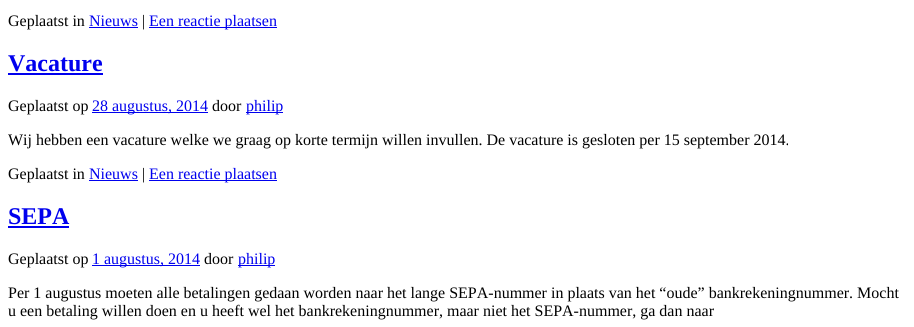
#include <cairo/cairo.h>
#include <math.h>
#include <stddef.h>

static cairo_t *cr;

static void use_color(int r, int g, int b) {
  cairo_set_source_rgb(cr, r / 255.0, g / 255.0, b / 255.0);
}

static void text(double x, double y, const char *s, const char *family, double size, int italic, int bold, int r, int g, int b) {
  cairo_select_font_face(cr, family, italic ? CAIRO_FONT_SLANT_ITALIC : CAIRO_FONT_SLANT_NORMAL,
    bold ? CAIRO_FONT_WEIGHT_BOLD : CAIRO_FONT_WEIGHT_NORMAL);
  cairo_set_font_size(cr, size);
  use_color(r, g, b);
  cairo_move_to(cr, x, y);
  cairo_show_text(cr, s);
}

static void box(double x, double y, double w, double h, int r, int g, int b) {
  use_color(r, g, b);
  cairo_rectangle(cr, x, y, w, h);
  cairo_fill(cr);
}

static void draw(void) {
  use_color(255, 255, 255);
  cairo_paint(cr);
  box(89, 27, 49, 1, 0, 0, 238);
  box(149, 27, 128, 1, 0, 0, 238);
  box(8, 73, 95, 2, 0, 0, 238);
  box(92, 112, 116, 1, 0, 0, 238);
  box(246, 112, 37, 1, 0, 0, 238);
  box(89, 180, 49, 1, 0, 0, 238);
  box(149, 180, 128, 1, 0, 0, 238);
  box(8, 226, 61, 2, 0, 0, 238);
  box(92, 265, 108, 1, 0, 0, 238);
  box(238, 265, 37, 1, 0, 0, 238);
  text(8, 26, "Geplaatst in", "Liberation Serif", 16, 0, 0, 0, 0, 0);
  text(89, 26, "Nieuws", "Liberation Serif", 16, 0, 0, 0, 0, 238);
  text(142, 26, "|", "Liberation Serif", 16, 0, 0, 0, 0, 0);
  text(149, 26, "Een reactie plaatsen", "Liberation Serif", 16, 0, 0, 0, 0, 238);
  text(8, 71, "Vacature", "Liberation Serif", 24, 0, 1, 0, 0, 238);
  text(8, 111, "Geplaatst op", "Liberation Serif", 16, 0, 0, 0, 0, 0);
  text(92, 111, "28 augustus, 2014", "Liberation Serif", 16, 0, 0, 0, 0, 238);
  text(212, 111, "door", "Liberation Serif", 16, 0, 0, 0, 0, 0);
  text(246, 111, "philip", "Liberation Serif", 16, 0, 0, 0, 0, 238);
  text(8, 145, "Wij hebben een vacature welke we graag op korte termijn willen invullen. De vacature is gesloten per 15 september 2014.", "Liberation Serif", 16, 0, 0, 0, 0, 0);
  text(8, 179, "Geplaatst in", "Liberation Serif", 16, 0, 0, 0, 0, 0);
  text(89, 179, "Nieuws", "Liberation Serif", 16, 0, 0, 0, 0, 238);
  text(142, 179, "|", "Liberation Serif", 16, 0, 0, 0, 0, 0);
  text(149, 179, "Een reactie plaatsen", "Liberation Serif", 16, 0, 0, 0, 0, 238);
  text(8, 224, "SEPA", "Liberation Serif", 24, 0, 1, 0, 0, 238);
  text(8, 264, "Geplaatst op", "Liberation Serif", 16, 0, 0, 0, 0, 0);
  text(92, 264, "1 augustus, 2014", "Liberation Serif", 16, 0, 0, 0, 0, 238);
  text(204, 264, "door", "Liberation Serif", 16, 0, 0, 0, 0, 0);
  text(238, 264, "philip", "Liberation Serif", 16, 0, 0, 0, 0, 238);
  text(8, 298, "Per 1 augustus moeten alle betalingen gedaan worden naar het lange SEPA-nummer in plaats van het “oude” bankrekeningnummer. Mocht", "Liberation Serif", 16, 0, 0, 0, 0, 0);
  text(8, 316, "u een betaling willen doen en u heeft wel het bankrekeningnummer, maar niet het SEPA-nummer, ga dan naar", "Liberation Serif", 16, 0, 0, 0, 0, 0);
}

int main(void) {
  cairo_surface_t *surface = cairo_image_surface_create(CAIRO_FORMAT_RGB24, 914, 327);
  cr = cairo_create(surface);
  cairo_font_options_t *options = cairo_font_options_create();
  cairo_font_options_set_hint_metrics(options, CAIRO_HINT_METRICS_OFF);
  cairo_font_options_set_hint_style(options, CAIRO_HINT_STYLE_NONE);
  cairo_set_font_options(cr, options);
  cairo_set_miter_limit(cr, 4);
  draw();
  cairo_surface_write_to_png(surface, "out.png");
  cairo_font_options_destroy(options);
  cairo_destroy(cr);
  cairo_surface_destroy(surface);
  return 0;
}
